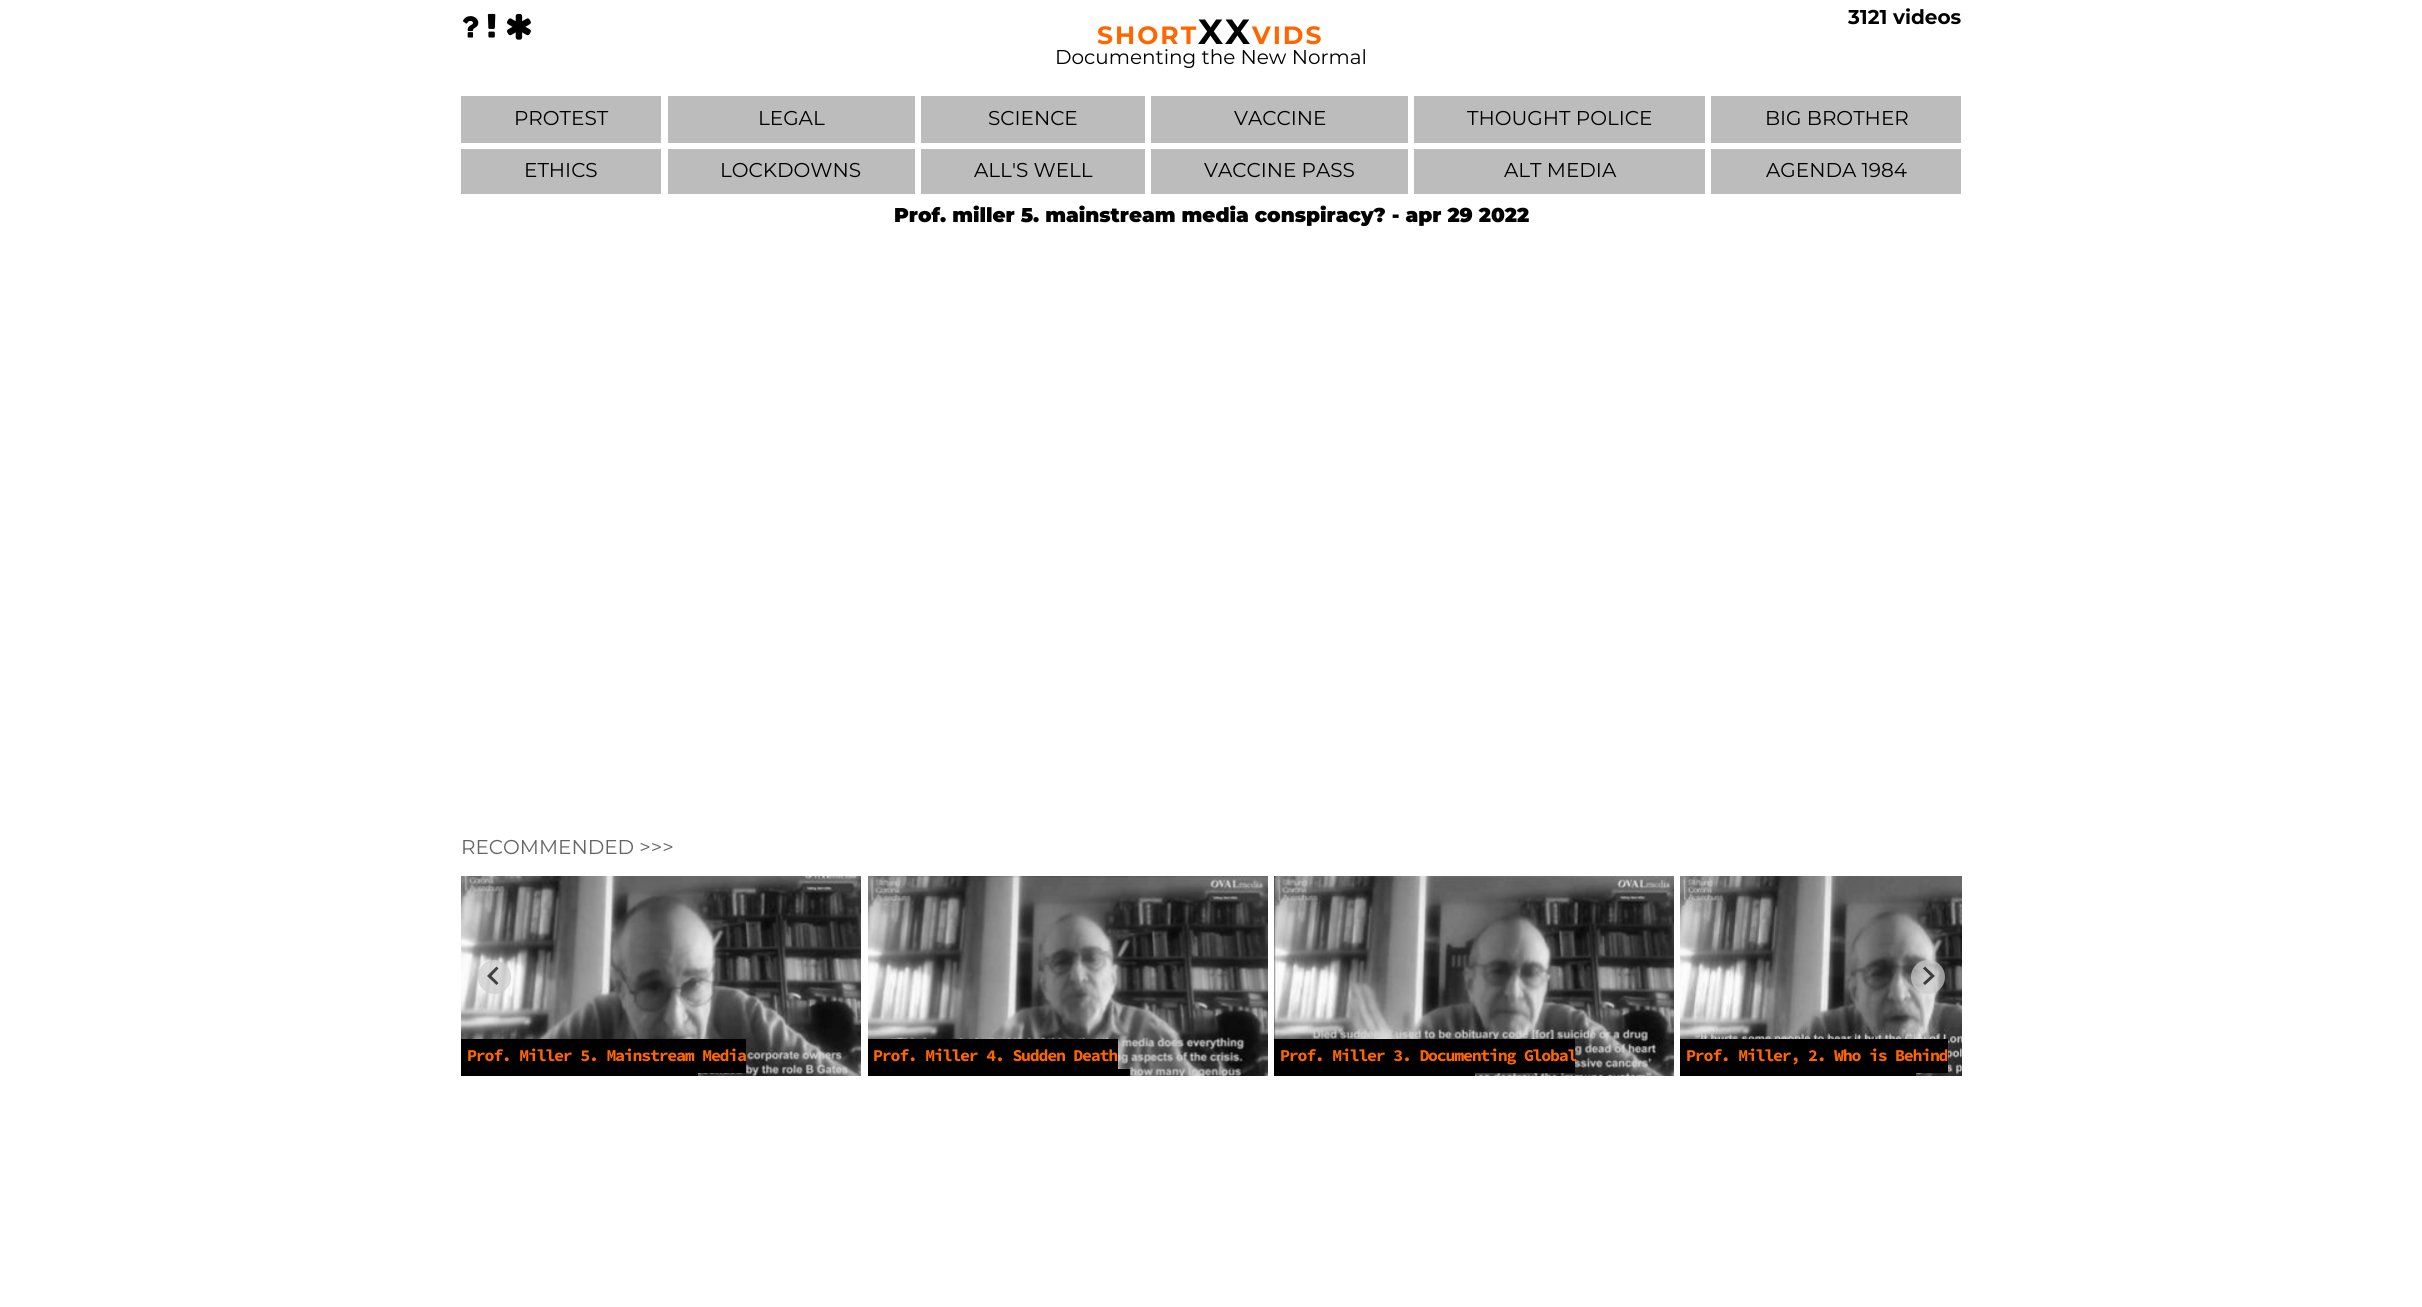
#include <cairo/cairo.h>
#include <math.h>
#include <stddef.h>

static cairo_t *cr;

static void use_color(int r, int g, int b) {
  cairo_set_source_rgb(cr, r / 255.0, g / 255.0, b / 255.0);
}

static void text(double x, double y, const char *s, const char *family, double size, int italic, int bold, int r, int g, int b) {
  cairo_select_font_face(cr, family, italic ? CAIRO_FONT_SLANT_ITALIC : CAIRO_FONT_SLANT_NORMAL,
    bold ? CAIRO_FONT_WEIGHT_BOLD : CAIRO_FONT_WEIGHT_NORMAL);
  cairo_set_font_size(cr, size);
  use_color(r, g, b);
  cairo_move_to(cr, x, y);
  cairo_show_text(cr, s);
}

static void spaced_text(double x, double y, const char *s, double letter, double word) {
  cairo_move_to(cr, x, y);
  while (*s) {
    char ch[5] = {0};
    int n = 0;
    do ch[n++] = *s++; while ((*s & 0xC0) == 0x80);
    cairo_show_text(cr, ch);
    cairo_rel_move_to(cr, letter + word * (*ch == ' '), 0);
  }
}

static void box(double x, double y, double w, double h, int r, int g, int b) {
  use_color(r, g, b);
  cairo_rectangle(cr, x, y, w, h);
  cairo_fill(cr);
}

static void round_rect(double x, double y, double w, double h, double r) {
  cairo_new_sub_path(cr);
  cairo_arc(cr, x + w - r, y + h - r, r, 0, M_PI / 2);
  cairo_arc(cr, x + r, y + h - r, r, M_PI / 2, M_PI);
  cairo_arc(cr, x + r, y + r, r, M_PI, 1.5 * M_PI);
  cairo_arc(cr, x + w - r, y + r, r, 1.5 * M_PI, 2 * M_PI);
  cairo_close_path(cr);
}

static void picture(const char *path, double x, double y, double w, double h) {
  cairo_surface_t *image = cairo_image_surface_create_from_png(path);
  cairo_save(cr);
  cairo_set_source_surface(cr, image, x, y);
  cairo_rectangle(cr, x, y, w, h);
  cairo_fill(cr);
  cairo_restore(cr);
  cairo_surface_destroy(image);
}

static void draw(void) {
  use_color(255, 255, 255);
  cairo_paint(cr);
  picture("img_01.png", 462, 16, 17, 22);
  picture("img_02.png", 487, 13, 9, 25);
  picture("img_03.png", 507, 13, 24, 27);
  box(461, 96, 200, 47, 188, 188, 188);
  box(668, 96, 247, 47, 188, 188, 188);
  box(921, 96, 224, 47, 188, 188, 188);
  box(1151, 96, 257, 47, 188, 188, 188);
  box(1414, 96, 291, 47, 188, 188, 188);
  box(1711, 96, 250, 47, 188, 188, 188);
  box(461, 149, 200, 45, 188, 188, 188);
  box(668, 149, 247, 45, 188, 188, 188);
  box(921, 149, 224, 45, 188, 188, 188);
  box(1151, 149, 257, 45, 188, 188, 188);
  box(1414, 149, 291, 45, 188, 188, 188);
  box(1711, 149, 250, 45, 188, 188, 188);
  picture("img_04.png", 461, 876, 400, 200);
  cairo_set_source_rgba(cr, 0.8, 0.8, 0.8, 0.7);
  round_rect(478, 960, 33, 34, 16.5);
  cairo_fill(cr);
  cairo_set_source_rgba(cr, 0, 0, 0, 0.7);
  cairo_new_path(cr);
  cairo_move_to(cr, 496.5, 966.5);
  cairo_line_to(cr, 498.5, 968.5);
  cairo_line_to(cr, 491.5, 976);
  cairo_line_to(cr, 498.5, 983);
  cairo_line_to(cr, 496.5, 985);
  cairo_line_to(cr, 487, 976);
  cairo_close_path(cr);
  cairo_fill(cr);
  picture("img_07.png", 1680, 876, 282, 200);
  cairo_set_source_rgba(cr, 0.8, 0.8, 0.8, 0.7);
  cairo_arc(cr, 1928, 977, 17, 0, 2 * M_PI);
  cairo_fill(cr);
  cairo_set_source_rgba(cr, 0, 0, 0, 0.7);
  cairo_new_path(cr);
  cairo_move_to(cr, 1925, 966.5);
  cairo_line_to(cr, 1923, 968.5);
  cairo_line_to(cr, 1930.5, 976);
  cairo_line_to(cr, 1923, 983);
  cairo_line_to(cr, 1925, 985);
  cairo_line_to(cr, 1935, 976);
  cairo_close_path(cr);
  cairo_fill(cr);
  box(461, 1039, 285, 34, 0, 0, 0);
  box(461, 1073, 237, 3, 0, 0, 0);
  picture("img_05.png", 868, 876, 400, 200);
  box(868, 1039, 250, 30, 0, 0, 0);
  box(868, 1069, 262, 7, 0, 0, 0);
  picture("img_06.png", 1274, 876, 400, 200);
  box(1274, 1039, 301, 34, 0, 0, 0);
  box(1274, 1073, 195, 3, 0, 0, 0);
  box(1469, 1069, 6, 7, 0, 0, 0);
  box(1680, 1039, 268, 34, 0, 0, 0);
  box(1680, 1073, 230, 3, 0, 0, 0);
  box(1910, 1069, 6, 7, 0, 0, 0);
  cairo_select_font_face(cr, "Montserrat", CAIRO_FONT_SLANT_NORMAL, CAIRO_FONT_WEIGHT_BOLD);
  cairo_set_font_size(cr, 25);
  use_color(255, 102, 0);
  spaced_text(1097, 44, "SHORT", 2, 0);
  cairo_set_font_size(cr, 35);
  use_color(0, 0, 0);
  spaced_text(1198, 44, "XX", 2, 0);
  cairo_set_font_size(cr, 25);
  use_color(255, 102, 0);
  spaced_text(1252, 44, "VIDS", 2, 0);
  text(1848, 24, "3121 videos", "Montserrat", 20, 0, 1, 0, 0, 0);
  text(1055, 64, "Documenting the New Normal", "Montserrat", 20, 0, 0, 0, 0, 0);
  text(514, 125, "PROTEST", "Montserrat", 20, 0, 0, 0, 0, 0);
  text(758, 125, "LEGAL", "Montserrat", 20, 0, 0, 0, 0, 0);
  text(988, 125, "SCIENCE", "Montserrat", 20, 0, 0, 0, 0, 0);
  text(1234, 125, "VACCINE", "Montserrat", 20, 0, 0, 0, 0, 0);
  text(1467, 125, "THOUGHT POLICE", "Montserrat", 20, 0, 0, 0, 0, 0);
  text(1765, 125, "BIG BROTHER", "Montserrat", 20, 0, 0, 0, 0, 0);
  text(524, 177, "ETHICS", "Montserrat", 20, 0, 0, 0, 0, 0);
  text(720, 177, "LOCKDOWNS", "Montserrat", 20, 0, 0, 0, 0, 0);
  text(974, 177, "ALL'S WELL", "Montserrat", 20, 0, 0, 0, 0, 0);
  text(1204, 177, "VACCINE PASS", "Montserrat", 20, 0, 0, 0, 0, 0);
  text(1504, 177, "ALT MEDIA", "Montserrat", 20, 0, 0, 0, 0, 0);
  text(1766, 177, "AGENDA 1984", "Montserrat", 20, 0, 0, 0, 0, 0);
  text(894, 222, "Prof. miller 5. mainstream media conspiracy? - apr 29 2022", "Montserrat Black", 20, 0, 0, 0, 0, 0);
  text(461, 854, "RECOMMENDED >>>", "Montserrat", 20, 0, 0, 100, 100, 100);
  cairo_select_font_face(cr, "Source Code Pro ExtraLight", CAIRO_FONT_SLANT_NORMAL, CAIRO_FONT_WEIGHT_BOLD);
  cairo_set_font_size(cr, 16.6);
  use_color(255, 102, 0);
  spaced_text(467, 1061, "Prof. Miller 5. Mainstream Media", -1.25, 0);
  spaced_text(873, 1061, "Prof. Miller 4. Sudden Death", -1.25, 0);
  spaced_text(1280, 1061, "Prof. Miller 3. Documenting Global", -1.25, 0);
  spaced_text(1686, 1061, "Prof. Miller, 2. Who is Behind", -1.25, 0);
}

int main(void) {
  cairo_surface_t *surface = cairo_image_surface_create(CAIRO_FORMAT_RGB24, 2422, 1307);
  cr = cairo_create(surface);
  cairo_font_options_t *options = cairo_font_options_create();
  cairo_font_options_set_hint_metrics(options, CAIRO_HINT_METRICS_OFF);
  cairo_font_options_set_hint_style(options, CAIRO_HINT_STYLE_NONE);
  cairo_set_font_options(cr, options);
  cairo_set_miter_limit(cr, 4);
  draw();
  cairo_surface_write_to_png(surface, "out.png");
  cairo_font_options_destroy(options);
  cairo_destroy(cr);
  cairo_surface_destroy(surface);
  return 0;
}
